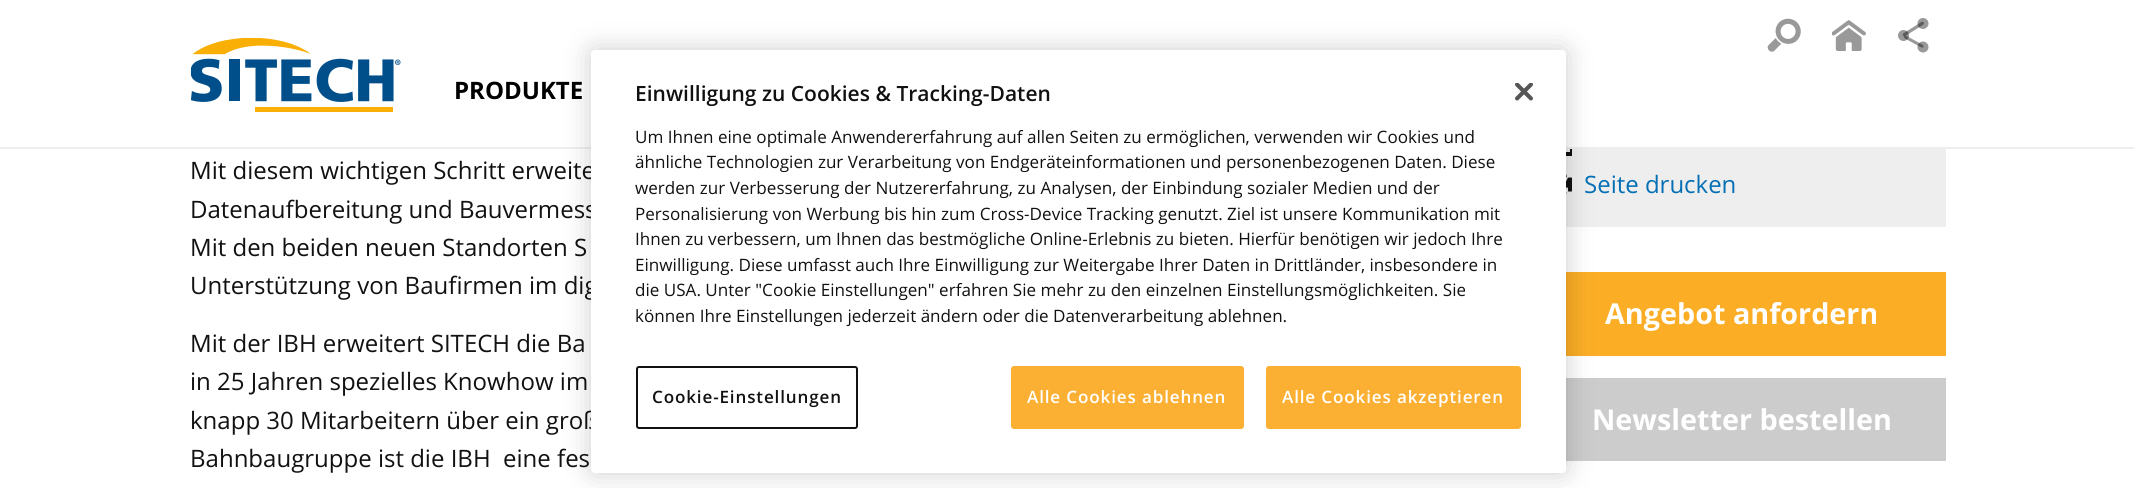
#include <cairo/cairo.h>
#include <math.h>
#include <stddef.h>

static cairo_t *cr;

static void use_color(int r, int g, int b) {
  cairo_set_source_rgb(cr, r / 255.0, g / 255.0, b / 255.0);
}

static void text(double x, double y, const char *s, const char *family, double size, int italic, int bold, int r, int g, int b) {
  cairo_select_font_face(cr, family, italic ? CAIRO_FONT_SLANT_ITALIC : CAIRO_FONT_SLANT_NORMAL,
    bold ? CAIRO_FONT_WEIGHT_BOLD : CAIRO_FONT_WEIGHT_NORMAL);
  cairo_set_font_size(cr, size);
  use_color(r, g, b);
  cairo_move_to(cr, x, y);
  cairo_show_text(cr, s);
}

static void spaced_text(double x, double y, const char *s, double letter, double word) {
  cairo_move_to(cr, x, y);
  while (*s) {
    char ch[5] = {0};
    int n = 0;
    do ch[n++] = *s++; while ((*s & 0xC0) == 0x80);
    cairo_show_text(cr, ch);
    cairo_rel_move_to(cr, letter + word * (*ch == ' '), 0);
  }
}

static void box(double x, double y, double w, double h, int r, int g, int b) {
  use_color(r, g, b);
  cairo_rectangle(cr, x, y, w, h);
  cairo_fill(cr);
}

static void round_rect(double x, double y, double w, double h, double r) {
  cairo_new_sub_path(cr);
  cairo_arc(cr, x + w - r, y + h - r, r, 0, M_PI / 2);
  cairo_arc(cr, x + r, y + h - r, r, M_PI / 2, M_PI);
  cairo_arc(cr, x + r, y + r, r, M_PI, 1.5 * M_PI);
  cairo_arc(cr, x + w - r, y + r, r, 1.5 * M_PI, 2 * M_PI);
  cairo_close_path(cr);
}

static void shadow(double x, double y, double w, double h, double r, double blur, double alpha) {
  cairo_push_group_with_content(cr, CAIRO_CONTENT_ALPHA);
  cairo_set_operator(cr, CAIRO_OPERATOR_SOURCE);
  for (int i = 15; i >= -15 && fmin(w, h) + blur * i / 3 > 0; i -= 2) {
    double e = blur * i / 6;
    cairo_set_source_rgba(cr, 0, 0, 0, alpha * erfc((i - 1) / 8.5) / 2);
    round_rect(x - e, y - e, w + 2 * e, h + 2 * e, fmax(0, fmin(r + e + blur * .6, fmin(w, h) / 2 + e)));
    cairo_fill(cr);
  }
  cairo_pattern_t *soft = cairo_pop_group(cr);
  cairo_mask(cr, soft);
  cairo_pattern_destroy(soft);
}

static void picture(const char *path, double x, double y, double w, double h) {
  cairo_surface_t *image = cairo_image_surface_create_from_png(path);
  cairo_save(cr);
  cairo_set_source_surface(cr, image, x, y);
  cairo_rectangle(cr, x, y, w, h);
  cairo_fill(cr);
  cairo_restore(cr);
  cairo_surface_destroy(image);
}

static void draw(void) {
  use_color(255, 255, 255);
  cairo_paint(cr);
  box(0, 147, 2134, 2, 238, 238, 238);
  picture("img_01.png", 191, 38, 210, 74);
  picture("img_02.png", 1767, 18, 34, 34);
  picture("img_03.png", 1832, 20, 34, 31);
  picture("img_04.png", 1898, 18, 31, 35);
  box(1566, 149, 380, 78, 238, 238, 238);
  picture("img_05.png", 1566, 149, 6, 7);
  picture("img_06.png", 1566, 174, 6, 20);
  box(1566, 272, 380, 84, 251, 173, 38);
  box(1566, 378, 380, 83, 204, 204, 204);
  use_color(0, 0, 0);
  shadow(591, 50, 975, 423, 4, 13.5, 0.2);
  text(454, 99, "PRODUKTE", "Open Sans", 24, 0, 1, 0, 0, 0);
  text(190, 179, "Mit diesem wichtigen Schritt erweite", "Open Sans", 24, 0, 0, 17, 17, 17);
  text(190, 218, "Datenaufbereitung und Bauvermess", "Open Sans", 24, 0, 0, 17, 17, 17);
  text(190, 256, "Mit den beiden neuen Standorten S", "Open Sans", 24, 0, 0, 17, 17, 17);
  text(190, 294, "Unterstützung von Baufirmen im dig", "Open Sans", 24, 0, 0, 17, 17, 17);
  text(190, 352, "Mit der IBH erweitert SITECH die Ba", "Open Sans", 24, 0, 0, 17, 17, 17);
  text(190, 390, "in 25 Jahren spezielles Knowhow im", "Open Sans", 24, 0, 0, 17, 17, 17);
  text(190, 429, "knapp 30 Mitarbeitern über ein groß", "Open Sans", 24, 0, 0, 17, 17, 17);
  text(190, 467, "Bahnbaugruppe ist die IBH  eine fes", "Open Sans", 24, 0, 0, 17, 17, 17);
  text(1584, 193, "Seite drucken", "Open Sans", 24, 0, 0, 4, 111, 181);
  text(1605, 324, "Angebot anfordern", "Open Sans", 28.75, 0, 1, 255, 255, 255);
  text(1592, 430, "Newsletter bestellen", "Open Sans", 28.75, 0, 1, 255, 255, 255);
  round_rect(591, 50, 975, 423, 4);
  cairo_fill(cr);
  text(635, 101, "Einwilligung zu Cookies & Tracking-Daten", "Open Sans SemiBold", 21, 0, 0, 17, 17, 17);
  text(635, 143, "Um Ihnen eine optimale Anwendererfahrung auf allen Seiten zu ermöglichen, verwenden wir Cookies und", "Open Sans", 17.07, 0, 0, 17, 17, 17);
  text(635, 168, "ähnliche Technologien zur Verarbeitung von Endgeräteinformationen und personenbezogenen Daten. Diese", "Open Sans", 17.07, 0, 0, 17, 17, 17);
  text(635, 194, "werden zur Verbesserung der Nutzererfahrung, zu Analysen, der Einbindung sozialer Medien und der", "Open Sans", 17.07, 0, 0, 17, 17, 17);
  text(635, 220, "Personalisierung von Werbung bis hin zum Cross-Device Tracking genutzt. Ziel ist unsere Kommunikation mit", "Open Sans", 17.07, 0, 0, 17, 17, 17);
  text(635, 245, "Ihnen zu verbessern, um Ihnen das bestmögliche Online-Erlebnis zu bieten. Hierfür benötigen wir jedoch Ihre", "Open Sans", 17.07, 0, 0, 17, 17, 17);
  text(635, 271, "Einwilligung. Diese umfasst auch Ihre Einwilligung zur Weitergabe Ihrer Daten in Drittländer, insbesondere in", "Open Sans", 17.07, 0, 0, 17, 17, 17);
  text(635, 296, "die USA. Unter \"Cookie Einstellungen\" erfahren Sie mehr zu den einzelnen Einstellungsmöglichkeiten. Sie", "Open Sans", 17.07, 0, 0, 17, 17, 17);
  text(635, 322, "können Ihre Einstellungen jederzeit ändern oder die Datenverarbeitung ablehnen.", "Open Sans", 17.07, 0, 0, 17, 17, 17);
  picture("img_07.png", 1515, 83, 18, 18);
  round_rect(637, 367, 220, 61, 2);
  cairo_stroke(cr);
  cairo_select_font_face(cr, "Open Sans SemiBold", CAIRO_FONT_SLANT_NORMAL, CAIRO_FONT_WEIGHT_NORMAL);
  spaced_text(652, 403, "Cookie-Einstellungen", 0.85, 0);
  use_color(251, 176, 52);
  round_rect(1012, 367, 231, 61, 2);
  cairo_fill_preserve(cr);
  cairo_stroke(cr);
  use_color(255, 255, 255);
  spaced_text(1027, 403, "Alle Cookies ablehnen", 0.85, 0);
  use_color(251, 176, 52);
  round_rect(1267, 367, 253, 61, 2);
  cairo_fill_preserve(cr);
  cairo_stroke(cr);
  use_color(255, 255, 255);
  spaced_text(1282, 403, "Alle Cookies akzeptieren", 0.85, 0);
}

int main(void) {
  cairo_surface_t *surface = cairo_image_surface_create(CAIRO_FORMAT_RGB24, 2134, 488);
  cr = cairo_create(surface);
  cairo_font_options_t *options = cairo_font_options_create();
  cairo_font_options_set_hint_metrics(options, CAIRO_HINT_METRICS_OFF);
  cairo_font_options_set_hint_style(options, CAIRO_HINT_STYLE_NONE);
  cairo_set_font_options(cr, options);
  cairo_set_miter_limit(cr, 4);
  draw();
  cairo_surface_write_to_png(surface, "out.png");
  cairo_font_options_destroy(options);
  cairo_destroy(cr);
  cairo_surface_destroy(surface);
  return 0;
}
